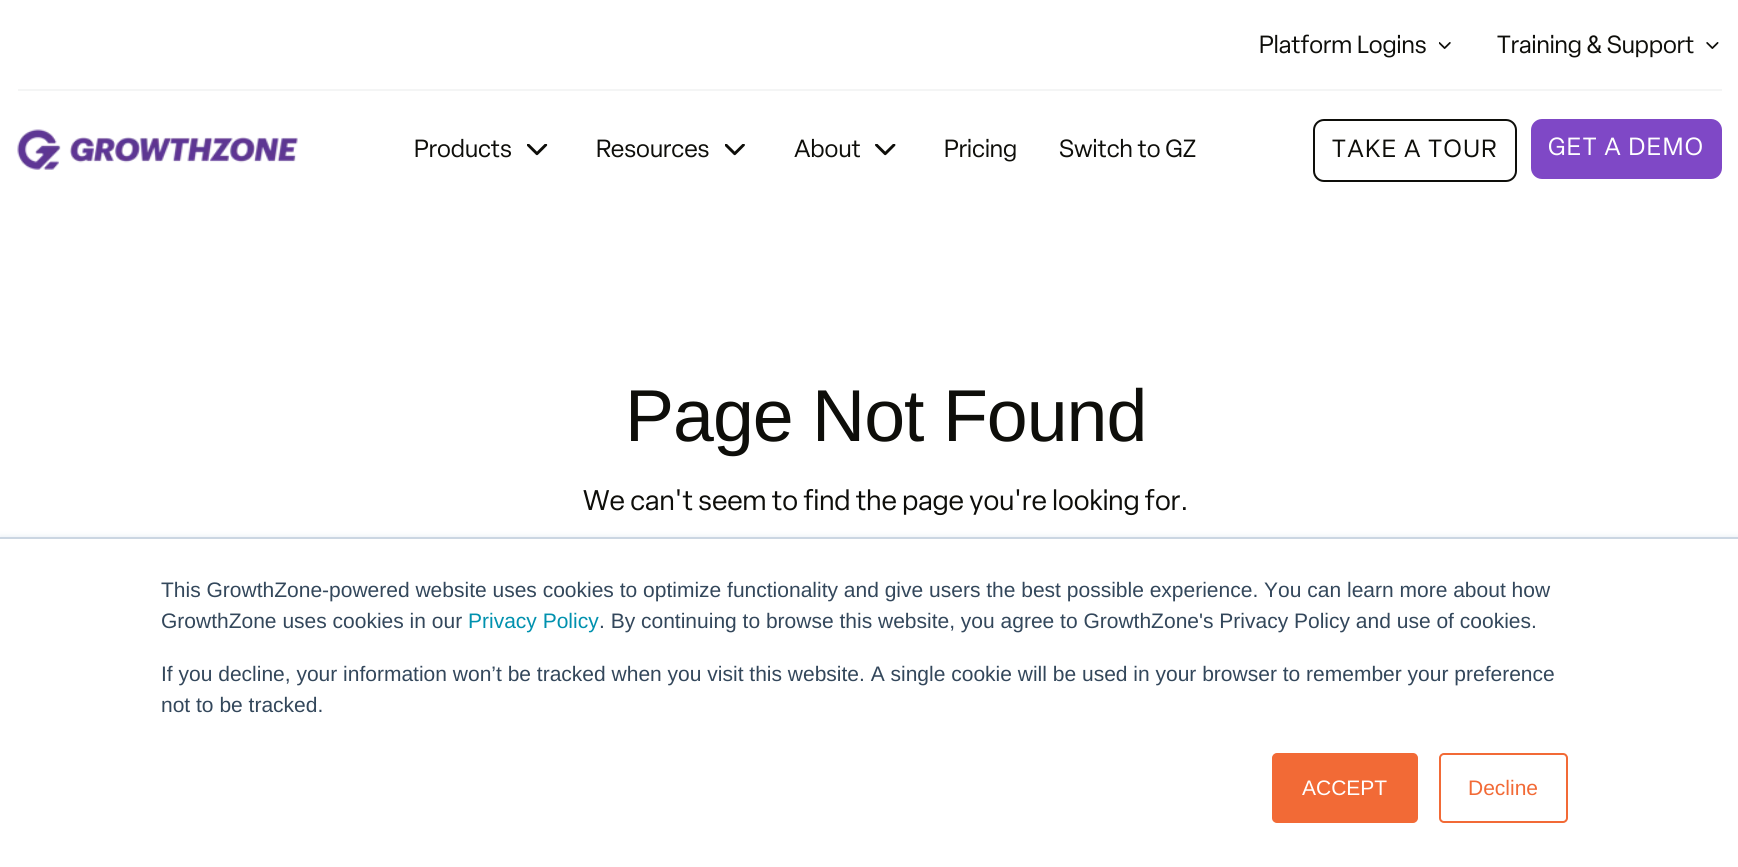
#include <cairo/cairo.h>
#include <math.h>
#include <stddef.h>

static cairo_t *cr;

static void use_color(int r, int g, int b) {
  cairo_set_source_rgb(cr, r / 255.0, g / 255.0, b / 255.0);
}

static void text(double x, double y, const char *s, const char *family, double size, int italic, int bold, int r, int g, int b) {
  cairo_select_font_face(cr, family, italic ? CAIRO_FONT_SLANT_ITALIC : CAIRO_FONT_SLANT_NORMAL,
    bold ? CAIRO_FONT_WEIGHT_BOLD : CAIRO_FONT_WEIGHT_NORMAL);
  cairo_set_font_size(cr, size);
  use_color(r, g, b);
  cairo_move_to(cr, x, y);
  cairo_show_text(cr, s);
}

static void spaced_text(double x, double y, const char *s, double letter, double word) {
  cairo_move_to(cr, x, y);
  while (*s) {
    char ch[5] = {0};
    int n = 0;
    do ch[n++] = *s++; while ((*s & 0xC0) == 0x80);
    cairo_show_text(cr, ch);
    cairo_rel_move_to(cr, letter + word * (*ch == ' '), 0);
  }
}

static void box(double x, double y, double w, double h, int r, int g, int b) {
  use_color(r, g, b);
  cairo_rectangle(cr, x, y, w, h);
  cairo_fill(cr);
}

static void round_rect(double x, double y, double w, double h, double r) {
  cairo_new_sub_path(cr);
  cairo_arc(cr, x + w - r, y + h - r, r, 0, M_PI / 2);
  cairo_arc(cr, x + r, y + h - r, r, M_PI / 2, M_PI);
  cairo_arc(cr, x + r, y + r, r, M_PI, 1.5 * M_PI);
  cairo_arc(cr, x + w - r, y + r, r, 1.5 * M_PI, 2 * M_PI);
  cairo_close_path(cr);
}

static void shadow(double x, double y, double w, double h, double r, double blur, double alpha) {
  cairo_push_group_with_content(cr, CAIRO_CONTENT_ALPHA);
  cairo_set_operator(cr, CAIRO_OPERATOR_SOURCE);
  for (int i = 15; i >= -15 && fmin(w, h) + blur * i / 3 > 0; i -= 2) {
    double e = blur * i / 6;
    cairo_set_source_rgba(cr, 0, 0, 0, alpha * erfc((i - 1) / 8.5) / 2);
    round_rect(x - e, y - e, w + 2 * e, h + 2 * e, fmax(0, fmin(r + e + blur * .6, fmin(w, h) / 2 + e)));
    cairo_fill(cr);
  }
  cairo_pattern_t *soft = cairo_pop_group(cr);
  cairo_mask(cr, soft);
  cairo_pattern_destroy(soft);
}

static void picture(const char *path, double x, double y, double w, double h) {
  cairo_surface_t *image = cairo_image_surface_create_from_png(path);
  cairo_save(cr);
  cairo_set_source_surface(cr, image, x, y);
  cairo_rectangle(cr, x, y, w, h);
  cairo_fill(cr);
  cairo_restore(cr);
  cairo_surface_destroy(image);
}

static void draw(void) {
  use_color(255, 255, 255);
  cairo_paint(cr);
  box(18, 89, 1704, 2, 244, 245, 245);
  picture("img_01.png", 1439, 42, 12, 7);
  picture("img_02.png", 1706, 42, 13, 7);
  picture("img_03.png", 17, 129, 281, 41);
  picture("img_04.png", 527, 144, 21, 12);
  picture("img_05.png", 725, 144, 20, 12);
  picture("img_06.png", 875, 144, 21, 12);
  round_rect(1314, 120, 202, 61, 10);
  use_color(14, 14, 10);
  cairo_stroke(cr);
  use_color(127, 72, 198);
  round_rect(1531, 119, 191, 60, 11);
  cairo_fill(cr);
  use_color(234, 240, 246);
  shadow(0, 536, 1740, 330, 0, 2.5, 1);
  box(0, 539, 1738, 328, 255, 255, 255);
  box(0, 537, 1738, 2, 203, 214, 226);
  use_color(242, 106, 54);
  round_rect(1273, 754, 144, 68, 4);
  cairo_fill_preserve(cr);
  cairo_stroke(cr);
  round_rect(1440, 754, 127, 68, 4);
  cairo_stroke(cr);
  text(1259, 53, "Platform Logins", "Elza", 24.5, 0, 0, 14, 14, 10);
  text(1497, 53, "Training & Support", "Elza", 24.5, 0, 0, 14, 14, 10);
  text(414, 157, "Products", "Elza", 24.5, 0, 0, 14, 14, 10);
  text(596, 157, "Resources", "Elza", 24.5, 0, 0, 14, 14, 10);
  text(794, 157, "About", "Elza", 24.5, 0, 0, 14, 14, 10);
  text(944, 157, "Pricing", "Elza", 24.5, 0, 0, 14, 14, 10);
  text(1059, 157, "Switch to GZ", "Elza", 24.5, 0, 0, 14, 14, 10);
  spaced_text(1332, 157, "TAKE A TOUR", 1.5, 0);
  use_color(255, 255, 255);
  spaced_text(1548, 155, "GET A DEMO", 1.5, 0);
  cairo_select_font_face(cr, "Liberation Sans", CAIRO_FONT_SLANT_NORMAL, CAIRO_FONT_WEIGHT_NORMAL);
  cairo_set_font_size(cr, 73.5);
  use_color(14, 14, 10);
  spaced_text(625, 441, "Page Not Found", -1, 0);
  text(583, 510, "We can't seem to find the page you're looking for.", "Elza", 28, 0, 0, 14, 14, 10);
  text(161, 597, "This GrowthZone-powered website uses cookies to optimize functionality and give users the best possible experience. You can learn more about how", "Liberation Sans", 21, 0, 0, 51, 71, 91);
  text(161, 628, "GrowthZone uses cookies in our", "Liberation Sans", 21, 0, 0, 51, 71, 91);
  text(468, 628, "Privacy Policy", "Liberation Sans", 21, 0, 0, 0, 145, 174);
  text(599, 628, ". By continuing to browse this website, you agree to GrowthZone's Privacy Policy and use of cookies.", "Liberation Sans", 21, 0, 0, 51, 71, 91);
  text(161, 681, "If you decline, your information won’t be tracked when you visit this website. A single cookie will be used in your browser to remember your preference", "Liberation Sans", 21, 0, 0, 51, 71, 91);
  text(161, 712, "not to be tracked.", "Liberation Sans", 21, 0, 0, 51, 71, 91);
  text(1302, 795, "ACCEPT", "Liberation Sans", 21, 0, 0, 255, 255, 255);
  text(1468, 795, "Decline", "Liberation Sans", 21, 0, 0, 242, 106, 54);
}

int main(void) {
  cairo_surface_t *surface = cairo_image_surface_create(CAIRO_FORMAT_RGB24, 1738, 867);
  cr = cairo_create(surface);
  cairo_font_options_t *options = cairo_font_options_create();
  cairo_font_options_set_hint_metrics(options, CAIRO_HINT_METRICS_OFF);
  cairo_font_options_set_hint_style(options, CAIRO_HINT_STYLE_NONE);
  cairo_set_font_options(cr, options);
  cairo_set_miter_limit(cr, 4);
  draw();
  cairo_surface_write_to_png(surface, "out.png");
  cairo_font_options_destroy(options);
  cairo_destroy(cr);
  cairo_surface_destroy(surface);
  return 0;
}
